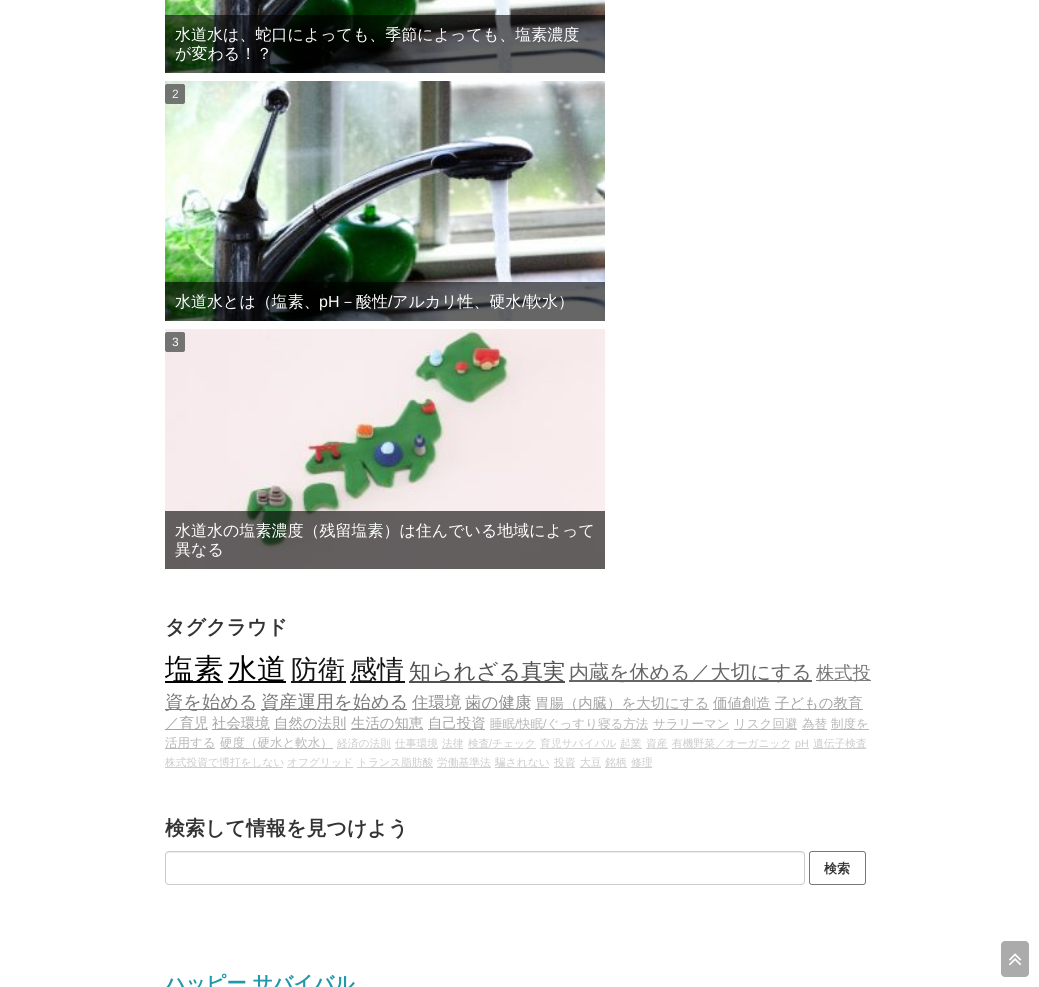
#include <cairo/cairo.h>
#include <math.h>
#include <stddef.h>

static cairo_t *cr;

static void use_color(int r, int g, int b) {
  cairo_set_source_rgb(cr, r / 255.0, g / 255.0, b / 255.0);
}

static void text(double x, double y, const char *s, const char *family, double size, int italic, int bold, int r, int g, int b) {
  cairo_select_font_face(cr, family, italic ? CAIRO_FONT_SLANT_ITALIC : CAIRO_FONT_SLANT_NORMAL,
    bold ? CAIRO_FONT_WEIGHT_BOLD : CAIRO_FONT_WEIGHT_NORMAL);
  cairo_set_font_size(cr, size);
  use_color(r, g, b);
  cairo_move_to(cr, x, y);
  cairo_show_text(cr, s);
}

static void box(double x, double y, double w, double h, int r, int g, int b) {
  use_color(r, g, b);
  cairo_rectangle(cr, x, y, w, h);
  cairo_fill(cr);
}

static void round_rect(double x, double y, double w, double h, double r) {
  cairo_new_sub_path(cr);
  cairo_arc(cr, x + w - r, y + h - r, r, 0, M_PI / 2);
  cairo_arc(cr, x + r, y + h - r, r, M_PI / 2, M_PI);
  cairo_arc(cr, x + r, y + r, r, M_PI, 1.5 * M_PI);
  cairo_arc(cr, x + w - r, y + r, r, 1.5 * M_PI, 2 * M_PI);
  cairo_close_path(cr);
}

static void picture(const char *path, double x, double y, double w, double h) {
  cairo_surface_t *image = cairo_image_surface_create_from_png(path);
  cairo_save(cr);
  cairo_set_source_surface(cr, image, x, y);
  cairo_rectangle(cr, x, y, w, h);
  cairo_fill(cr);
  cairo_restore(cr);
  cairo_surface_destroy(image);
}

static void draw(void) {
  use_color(255, 255, 255);
  cairo_paint(cr);
  picture("img_01.png", 165, 0, 440, 73);
  cairo_set_source_rgba(cr, 0, 0, 0, 0.6);
  cairo_rectangle(cr, 165, 15, 440, 58);
  cairo_fill(cr);
  picture("img_02.png", 165, 81, 440, 240);
  cairo_set_source_rgba(cr, 0.4, 0.4, 0.4, 0.9);
  round_rect(165, 84, 20, 20, 2);
  cairo_fill(cr);
  cairo_set_source_rgba(cr, 0, 0, 0, 0.6);
  cairo_rectangle(cr, 165, 282, 440, 39);
  cairo_fill(cr);
  picture("img_03.png", 165, 329, 440, 240);
  use_color(116, 115, 115);
  round_rect(165, 332, 20, 20, 2);
  cairo_fill(cr);
  cairo_set_source_rgba(cr, 0, 0, 0, 0.6);
  cairo_rectangle(cr, 165, 511, 440, 58);
  cairo_fill(cr);
  box(165, 681, 58, 2, 0, 0, 0);
  box(228, 681, 58, 2, 0, 0, 0);
  box(291, 681, 55, 2, 20, 20, 20);
  box(350, 681, 55, 2, 20, 20, 20);
  box(409, 681, 156, 2, 81, 81, 81);
  box(569, 680, 243, 2, 102, 102, 102);
  box(816, 680, 55, 1, 122, 122, 122);
  box(165, 709, 91, 1, 122, 122, 122);
  box(261, 709, 146, 1, 122, 122, 122);
  box(412, 709, 48, 1, 142, 142, 142);
  box(465, 709, 65, 1, 142, 142, 142);
  box(535, 709, 174, 1, 163, 163, 163);
  box(713, 709, 58, 1, 163, 163, 163);
  box(775, 709, 88, 1, 163, 163, 163);
  box(165, 729, 43, 1, 163, 163, 163);
  box(212, 729, 58, 1, 163, 163, 163);
  box(274, 729, 72, 1, 163, 163, 163);
  box(351, 729, 72, 1, 163, 163, 163);
  box(428, 729, 57, 1, 163, 163, 163);
  box(490, 729, 158, 1, 183, 183, 183);
  box(734, 729, 63, 1, 183, 183, 183);
  box(802, 729, 25, 1, 183, 183, 183);
  box(831, 729, 38, 1, 183, 183, 183);
  box(653, 729, 76, 1, 183, 183, 183);
  box(165, 748, 50, 1, 183, 183, 183);
  box(220, 748, 113, 1, 183, 183, 183);
  box(337, 748, 54, 1, 204, 204, 204);
  box(395, 748, 43, 1, 204, 204, 204);
  box(442, 748, 21, 1, 204, 204, 204);
  box(468, 748, 68, 1, 204, 204, 204);
  box(540, 748, 76, 1, 204, 204, 204);
  box(620, 748, 22, 1, 204, 204, 204);
  box(646, 748, 22, 1, 204, 204, 204);
  box(672, 748, 118, 1, 204, 204, 204);
  box(795, 748, 14, 1, 204, 204, 204);
  box(813, 748, 53, 1, 204, 204, 204);
  box(165, 767, 118, 1, 204, 204, 204);
  box(287, 767, 66, 1, 204, 204, 204);
  box(357, 767, 76, 1, 204, 204, 204);
  box(437, 767, 54, 1, 204, 204, 204);
  box(495, 767, 54, 1, 204, 204, 204);
  box(554, 767, 21, 1, 204, 204, 204);
  box(580, 767, 21, 1, 204, 204, 204);
  box(605, 767, 22, 1, 204, 204, 204);
  box(631, 767, 21, 1, 204, 204, 204);
  use_color(236, 236, 236);
  cairo_new_path(cr);
  cairo_move_to(cr, 169, 853);
  cairo_line_to(cr, 801, 853);
  cairo_curve_to(cr, 803, 853, 804, 854, 804, 856);
  cairo_line_to(cr, 804, 855);
  cairo_curve_to(cr, 804, 853, 803, 852, 801, 852);
  cairo_line_to(cr, 169, 852);
  cairo_curve_to(cr, 167, 852, 166, 853, 166, 855);
  cairo_line_to(cr, 166, 856);
  cairo_curve_to(cr, 166, 854, 167, 853, 169, 853);
  cairo_close_path(cr);
  cairo_fill(cr);
  round_rect(165.5, 851.5, 639, 33, 3.5);
  use_color(204, 204, 204);
  cairo_set_line_width(cr, 1);
  cairo_stroke(cr);
  round_rect(809.5, 851.5, 56, 33, 2.5);
  use_color(119, 119, 119);
  cairo_stroke(cr);
  use_color(171, 171, 171);
  round_rect(1001, 941, 28, 36, 4);
  cairo_fill(cr);
  picture("img_04.png", 1009, 953, 13, 13);
  text(175, 40, "水道水は、蛇口によっても、季節によっても、塩素濃度", "WenQuanYi Zen Hei Medium", 16, 0, 0, 255, 255, 255);
  text(175, 59, "が変わる！？", "WenQuanYi Zen Hei Medium", 16, 0, 0, 255, 255, 255);
  text(172, 98, "2", "Liberation Sans", 12, 0, 0, 241, 241, 241);
  text(175, 307, "水道水とは（塩素、", "WenQuanYi Zen Hei Medium", 16, 0, 0, 255, 255, 255);
  text(319, 307, "pH", "Liberation Sans", 16, 0, 0, 255, 255, 255);
  text(340, 307, "－酸性", "WenQuanYi Zen Hei Medium", 16, 0, 0, 255, 255, 255);
  text(388, 307, "/", "Liberation Sans", 16, 0, 0, 255, 255, 255);
  text(392, 307, "アルカリ性、硬水", "WenQuanYi Zen Hei Medium", 16, 0, 0, 255, 255, 255);
  text(522, 307, "/", "Liberation Sans", 16, 0, 0, 255, 255, 255);
  text(526, 307, "軟水）", "WenQuanYi Zen Hei Medium", 16, 0, 0, 255, 255, 255);
  text(172, 346, "3", "Liberation Sans", 12, 0, 0, 255, 255, 255);
  text(175, 536, "水道水の塩素濃度（残留塩素）は住んでいる地域によって", "WenQuanYi Zen Hei Medium", 16, 0, 0, 255, 255, 255);
  text(175, 555, "異なる", "WenQuanYi Zen Hei Medium", 16, 0, 0, 255, 255, 255);
  text(165, 634, "タグクラウド", "WenQuanYi Zen Hei", 20, 0, 1, 51, 51, 51);
  cairo_save(cr);
  cairo_rectangle(cr, 165, 0, 710, 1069);
  cairo_clip(cr);
  text(165, 679, "塩素", "WenQuanYi Zen Hei Medium", 29, 0, 0, 0, 0, 0);
  cairo_restore(cr);
  text(228, 679, "水道", "WenQuanYi Zen Hei Medium", 29, 0, 0, 0, 0, 0);
  text(291, 679, "防衛", "WenQuanYi Zen Hei Medium", 27, 0, 0, 20, 20, 20);
  text(350, 679, "感情", "WenQuanYi Zen Hei Medium", 27, 0, 0, 20, 20, 20);
  text(409, 679, "知られざる真実", "WenQuanYi Zen Hei Medium", 22, 0, 0, 81, 81, 81);
  text(569, 679, "内蔵を休める／大切にする", "WenQuanYi Zen Hei Medium", 20, 0, 0, 102, 102, 102);
  text(816, 679, "株式投", "WenQuanYi Zen Hei Medium", 18.25, 0, 0, 122, 122, 122);
  text(165, 708, "資を始める", "WenQuanYi Zen Hei Medium", 18.25, 0, 0, 122, 122, 122);
  text(261, 708, "資産運用を始める", "WenQuanYi Zen Hei Medium", 18.25, 0, 0, 122, 122, 122);
  text(412, 708, "住環境", "WenQuanYi Zen Hei Medium", 16.5, 0, 0, 142, 142, 142);
  text(465, 708, "歯の健康", "WenQuanYi Zen Hei Medium", 16.5, 0, 0, 142, 142, 142);
  text(535, 708, "胃腸（内臓）を大切にする", "WenQuanYi Zen Hei Medium", 14.4, 0, 0, 163, 163, 163);
  text(713, 708, "価値創造", "WenQuanYi Zen Hei Medium", 14.4, 0, 0, 163, 163, 163);
  text(775, 708, "子どもの教育", "WenQuanYi Zen Hei Medium", 14.4, 0, 0, 163, 163, 163);
  text(165, 728, "／育児", "WenQuanYi Zen Hei Medium", 14.4, 0, 0, 163, 163, 163);
  text(212, 728, "社会環境", "WenQuanYi Zen Hei Medium", 14.4, 0, 0, 163, 163, 163);
  text(274, 728, "自然の法則", "WenQuanYi Zen Hei Medium", 14.4, 0, 0, 163, 163, 163);
  text(351, 728, "生活の知恵", "WenQuanYi Zen Hei Medium", 14.4, 0, 0, 163, 163, 163);
  text(428, 728, "自己投資", "WenQuanYi Zen Hei Medium", 14.4, 0, 0, 163, 163, 163);
  text(490, 728, "睡眠", "WenQuanYi Zen Hei Medium", 12.5, 0, 0, 183, 183, 183);
  text(515, 728, "/", "Liberation Sans", 12.5, 0, 0, 183, 183, 183);
  text(518, 728, "快眠 ぐっすり寝る方法", "WenQuanYi Zen Hei Medium", 12.5, 0, 0, 183, 183, 183);
  text(734, 728, "リスク回避", "WenQuanYi Zen Hei Medium", 12.5, 0, 0, 183, 183, 183);
  text(802, 728, "為替", "WenQuanYi Zen Hei Medium", 12.5, 0, 0, 183, 183, 183);
  text(831, 728, "制度を", "WenQuanYi Zen Hei Medium", 12.5, 0, 0, 183, 183, 183);
  text(543, 728, "/", "Liberation Sans", 12.5, 0, 0, 183, 183, 183);
  text(653, 728, "サラリーマン", "WenQuanYi Zen Hei Medium", 12.5, 0, 0, 183, 183, 183);
  text(165, 747, "活用する", "WenQuanYi Zen Hei Medium", 12.5, 0, 0, 183, 183, 183);
  text(220, 747, "硬度（硬水と軟水）", "WenQuanYi Zen Hei Medium", 12.5, 0, 0, 183, 183, 183);
  text(337, 747, "経済の法則", "WenQuanYi Zen Hei Medium", 10.75, 0, 0, 204, 204, 204);
  text(395, 747, "仕事環境", "WenQuanYi Zen Hei Medium", 10.75, 0, 0, 204, 204, 204);
  text(442, 747, "法律", "WenQuanYi Zen Hei Medium", 10.75, 0, 0, 204, 204, 204);
  text(468, 747, "検査", "WenQuanYi Zen Hei Medium", 10.75, 0, 0, 204, 204, 204);
  text(489, 747, "/", "Liberation Sans", 10.75, 0, 0, 204, 204, 204);
  text(492, 747, "チェック", "WenQuanYi Zen Hei Medium", 10.75, 0, 0, 204, 204, 204);
  text(540, 747, "育児サバイバル", "WenQuanYi Zen Hei Medium", 10.75, 0, 0, 204, 204, 204);
  text(620, 747, "起業", "WenQuanYi Zen Hei Medium", 10.75, 0, 0, 204, 204, 204);
  text(646, 747, "資産", "WenQuanYi Zen Hei Medium", 10.75, 0, 0, 204, 204, 204);
  text(672, 747, "有機野菜／オーガニック", "WenQuanYi Zen Hei Medium", 10.75, 0, 0, 204, 204, 204);
  text(795, 747, "pH", "Liberation Sans", 10.75, 0, 0, 204, 204, 204);
  text(813, 747, "遺伝子検査", "WenQuanYi Zen Hei Medium", 10.75, 0, 0, 204, 204, 204);
  cairo_save(cr);
  cairo_rectangle(cr, 165, 0, 710, 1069);
  cairo_clip(cr);
  text(165, 766, "株式投資で博打をしない", "WenQuanYi Zen Hei Medium", 10.75, 0, 0, 204, 204, 204);
  cairo_restore(cr);
  text(287, 766, "オフグリッド", "WenQuanYi Zen Hei Medium", 10.75, 0, 0, 204, 204, 204);
  text(357, 766, "トランス脂肪酸", "WenQuanYi Zen Hei Medium", 10.75, 0, 0, 204, 204, 204);
  text(437, 766, "労働基準法", "WenQuanYi Zen Hei Medium", 10.75, 0, 0, 204, 204, 204);
  text(495, 766, "騙されない", "WenQuanYi Zen Hei Medium", 10.75, 0, 0, 204, 204, 204);
  text(554, 766, "投資", "WenQuanYi Zen Hei Medium", 10.75, 0, 0, 204, 204, 204);
  text(580, 766, "大豆", "WenQuanYi Zen Hei Medium", 10.75, 0, 0, 204, 204, 204);
  text(605, 766, "銘柄", "WenQuanYi Zen Hei Medium", 10.75, 0, 0, 204, 204, 204);
  text(631, 766, "修理", "WenQuanYi Zen Hei Medium", 10.75, 0, 0, 204, 204, 204);
  text(165, 835, "検索して情報を見つけよう", "WenQuanYi Zen Hei", 20, 0, 1, 51, 51, 51);
  text(824, 873, "検索", "WenQuanYi Zen Hei", 13, 0, 1, 51, 51, 51);
  text(165, 990, "ハッピー サバイバル", "WenQuanYi Zen Hei", 20, 0, 1, 32, 152, 168);
}

int main(void) {
  cairo_surface_t *surface = cairo_image_surface_create(CAIRO_FORMAT_RGB24, 1039, 987);
  cr = cairo_create(surface);
  cairo_font_options_t *options = cairo_font_options_create();
  cairo_font_options_set_hint_metrics(options, CAIRO_HINT_METRICS_OFF);
  cairo_font_options_set_hint_style(options, CAIRO_HINT_STYLE_NONE);
  cairo_set_font_options(cr, options);
  cairo_set_miter_limit(cr, 4);
  draw();
  cairo_surface_write_to_png(surface, "out.png");
  cairo_font_options_destroy(options);
  cairo_destroy(cr);
  cairo_surface_destroy(surface);
  return 0;
}
